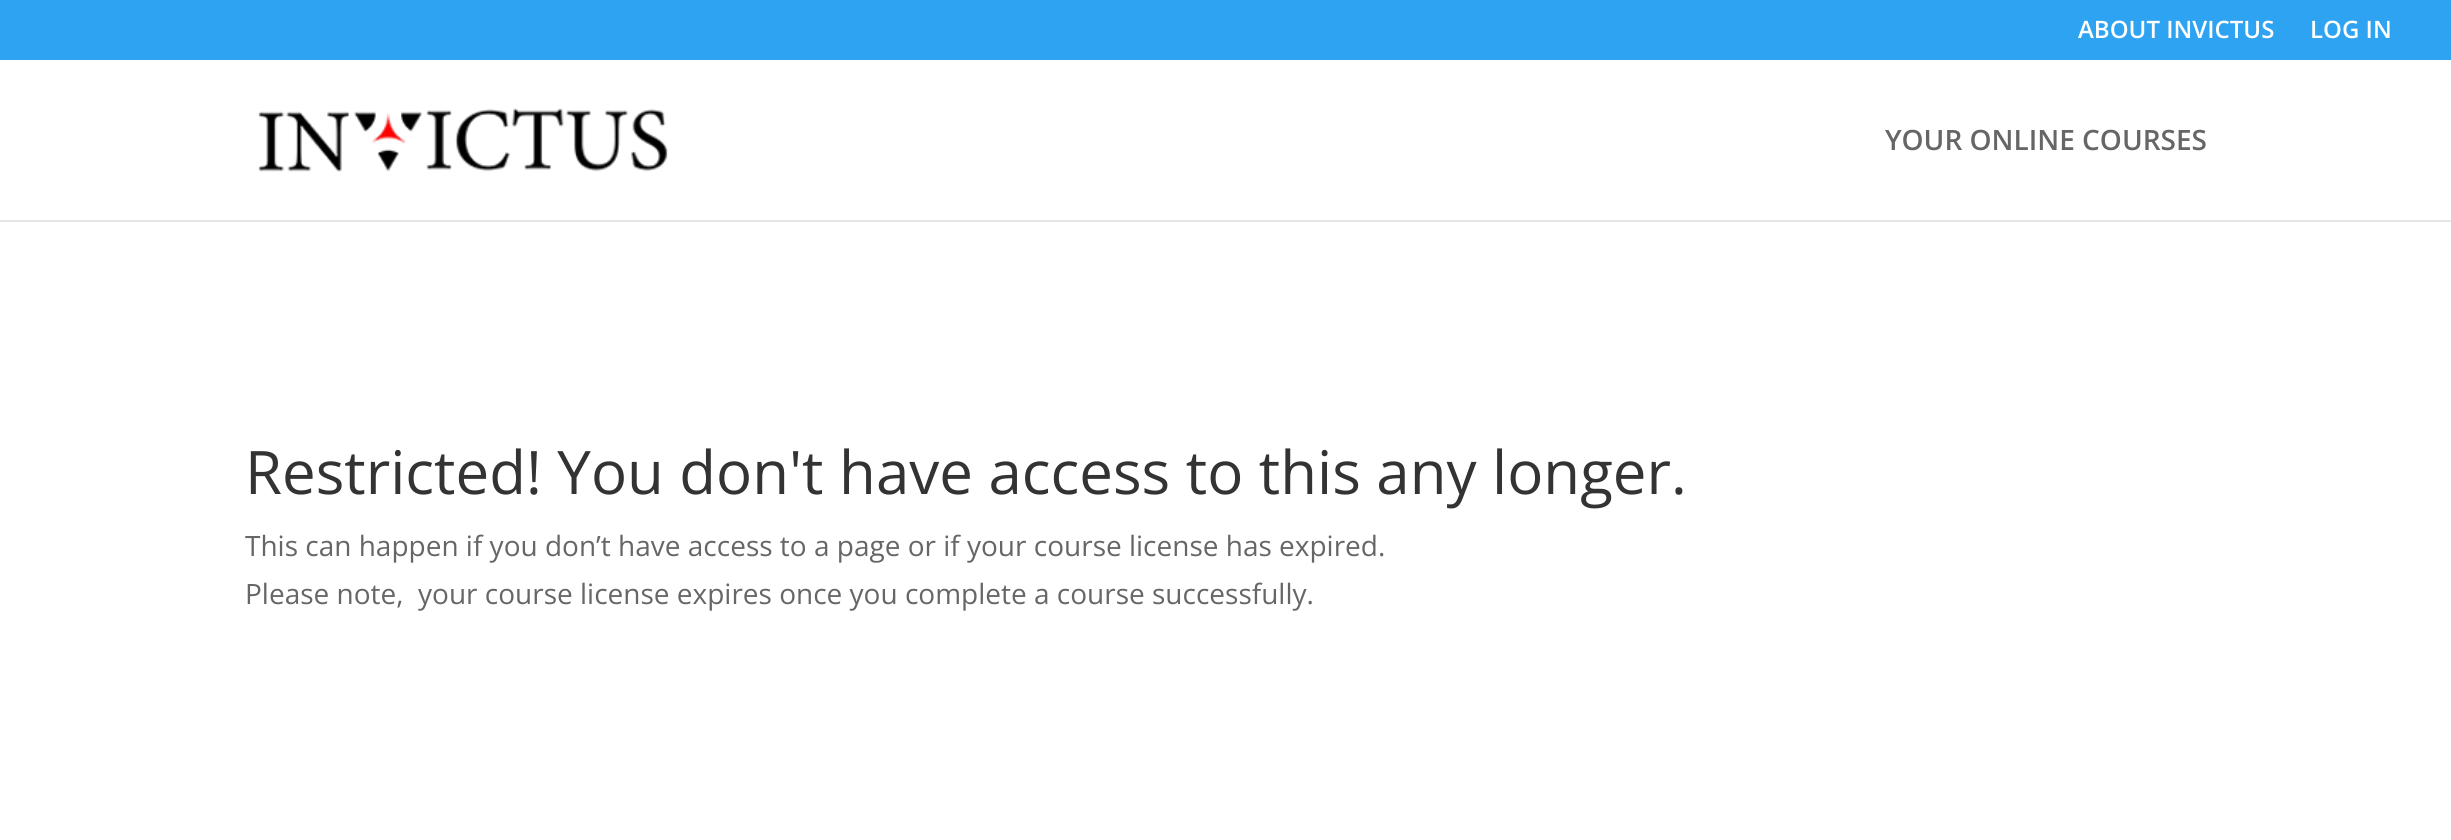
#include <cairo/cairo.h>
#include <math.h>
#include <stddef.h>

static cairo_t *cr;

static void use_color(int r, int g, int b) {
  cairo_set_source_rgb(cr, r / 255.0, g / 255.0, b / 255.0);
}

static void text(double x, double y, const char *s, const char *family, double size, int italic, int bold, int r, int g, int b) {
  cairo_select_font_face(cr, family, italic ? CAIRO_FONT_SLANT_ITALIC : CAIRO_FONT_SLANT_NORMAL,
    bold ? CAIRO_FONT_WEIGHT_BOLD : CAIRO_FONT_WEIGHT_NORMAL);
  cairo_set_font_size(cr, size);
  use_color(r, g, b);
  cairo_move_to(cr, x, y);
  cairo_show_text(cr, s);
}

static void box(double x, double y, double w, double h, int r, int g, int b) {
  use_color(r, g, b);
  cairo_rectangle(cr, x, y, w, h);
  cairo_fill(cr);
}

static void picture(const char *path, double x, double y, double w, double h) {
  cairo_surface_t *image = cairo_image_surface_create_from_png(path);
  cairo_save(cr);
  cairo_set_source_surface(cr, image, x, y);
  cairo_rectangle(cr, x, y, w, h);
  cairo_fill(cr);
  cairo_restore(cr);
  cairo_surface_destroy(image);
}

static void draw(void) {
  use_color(255, 255, 255);
  cairo_paint(cr);
  box(0, 0, 2451, 60, 46, 163, 242);
  box(0, 220, 2451, 2, 230, 230, 230);
  picture("img_01.png", 258, 108, 410, 64);
  text(2078, 38, "ABOUT INVICTUS", "Open Sans SemiBold", 24, 0, 0, 255, 255, 255);
  text(2310, 38, "LOG IN", "Open Sans SemiBold", 24, 0, 0, 255, 255, 255);
  text(1885, 150, "YOUR ONLINE COURSES", "Open Sans SemiBold", 28, 0, 0, 102, 102, 102);
  text(245, 494, "Restricted! You don't have access to this any longer.", "Open Sans", 60, 0, 0, 51, 51, 51);
  text(245, 556, "This can happen if you don’t have access to a page or if your course license has expired.", "Open Sans", 28, 0, 0, 102, 102, 102);
  text(245, 604, "Please note,  your course license expires once you complete a course successfully.", "Open Sans", 28, 0, 0, 102, 102, 102);
}

int main(void) {
  cairo_surface_t *surface = cairo_image_surface_create(CAIRO_FORMAT_RGB24, 2451, 840);
  cr = cairo_create(surface);
  cairo_font_options_t *options = cairo_font_options_create();
  cairo_font_options_set_hint_metrics(options, CAIRO_HINT_METRICS_OFF);
  cairo_font_options_set_hint_style(options, CAIRO_HINT_STYLE_NONE);
  cairo_set_font_options(cr, options);
  cairo_set_miter_limit(cr, 4);
  draw();
  cairo_surface_write_to_png(surface, "out.png");
  cairo_font_options_destroy(options);
  cairo_destroy(cr);
  cairo_surface_destroy(surface);
  return 0;
}
